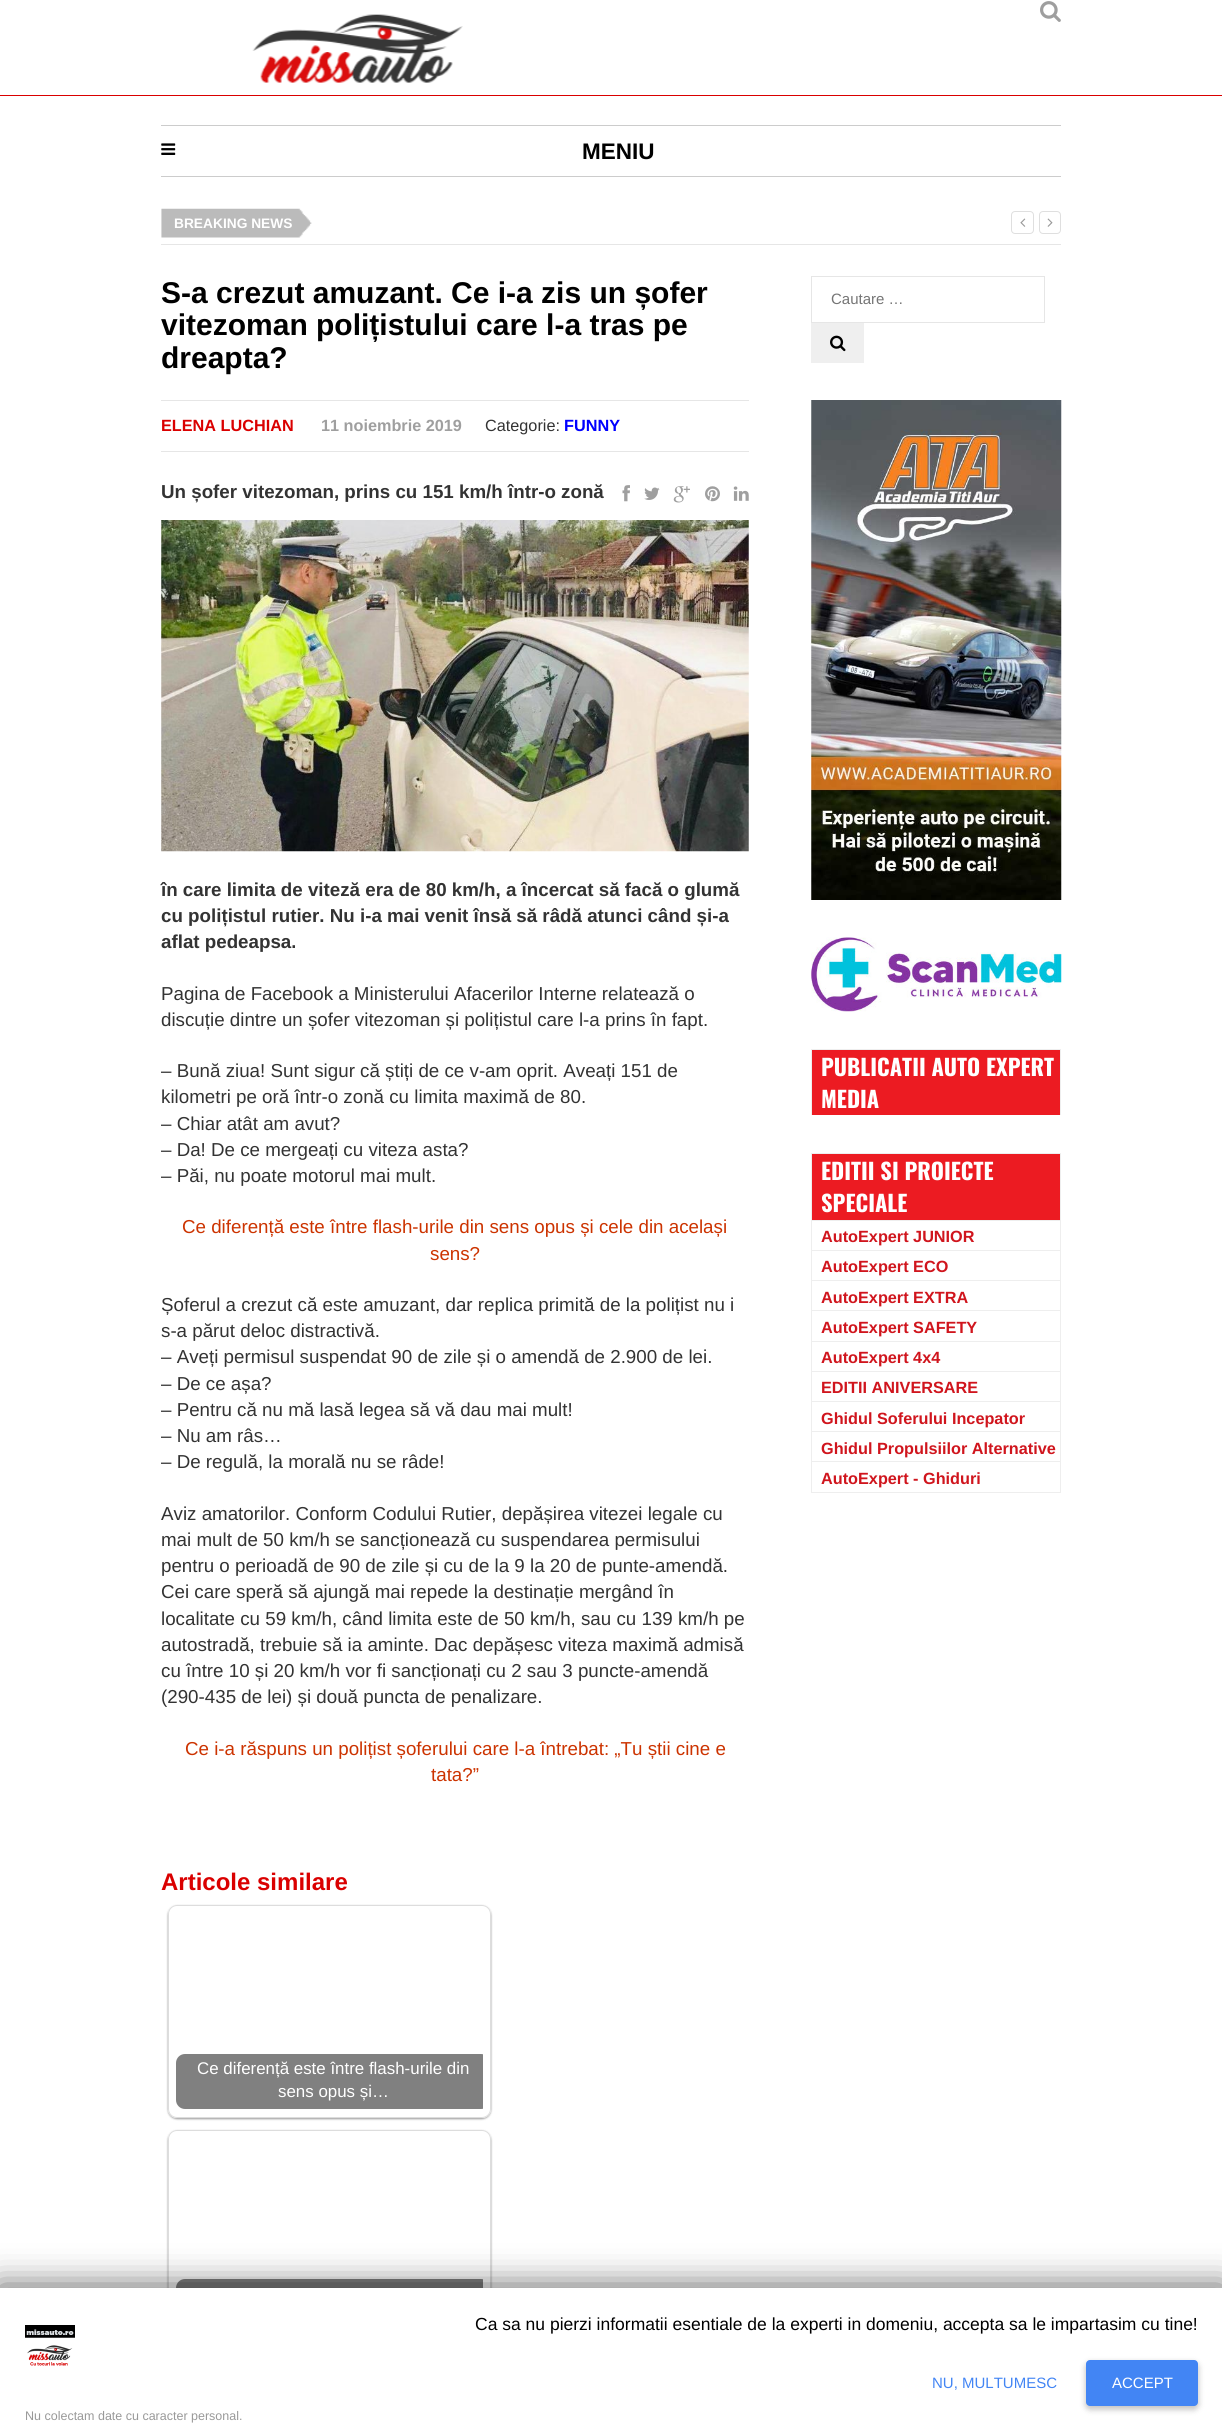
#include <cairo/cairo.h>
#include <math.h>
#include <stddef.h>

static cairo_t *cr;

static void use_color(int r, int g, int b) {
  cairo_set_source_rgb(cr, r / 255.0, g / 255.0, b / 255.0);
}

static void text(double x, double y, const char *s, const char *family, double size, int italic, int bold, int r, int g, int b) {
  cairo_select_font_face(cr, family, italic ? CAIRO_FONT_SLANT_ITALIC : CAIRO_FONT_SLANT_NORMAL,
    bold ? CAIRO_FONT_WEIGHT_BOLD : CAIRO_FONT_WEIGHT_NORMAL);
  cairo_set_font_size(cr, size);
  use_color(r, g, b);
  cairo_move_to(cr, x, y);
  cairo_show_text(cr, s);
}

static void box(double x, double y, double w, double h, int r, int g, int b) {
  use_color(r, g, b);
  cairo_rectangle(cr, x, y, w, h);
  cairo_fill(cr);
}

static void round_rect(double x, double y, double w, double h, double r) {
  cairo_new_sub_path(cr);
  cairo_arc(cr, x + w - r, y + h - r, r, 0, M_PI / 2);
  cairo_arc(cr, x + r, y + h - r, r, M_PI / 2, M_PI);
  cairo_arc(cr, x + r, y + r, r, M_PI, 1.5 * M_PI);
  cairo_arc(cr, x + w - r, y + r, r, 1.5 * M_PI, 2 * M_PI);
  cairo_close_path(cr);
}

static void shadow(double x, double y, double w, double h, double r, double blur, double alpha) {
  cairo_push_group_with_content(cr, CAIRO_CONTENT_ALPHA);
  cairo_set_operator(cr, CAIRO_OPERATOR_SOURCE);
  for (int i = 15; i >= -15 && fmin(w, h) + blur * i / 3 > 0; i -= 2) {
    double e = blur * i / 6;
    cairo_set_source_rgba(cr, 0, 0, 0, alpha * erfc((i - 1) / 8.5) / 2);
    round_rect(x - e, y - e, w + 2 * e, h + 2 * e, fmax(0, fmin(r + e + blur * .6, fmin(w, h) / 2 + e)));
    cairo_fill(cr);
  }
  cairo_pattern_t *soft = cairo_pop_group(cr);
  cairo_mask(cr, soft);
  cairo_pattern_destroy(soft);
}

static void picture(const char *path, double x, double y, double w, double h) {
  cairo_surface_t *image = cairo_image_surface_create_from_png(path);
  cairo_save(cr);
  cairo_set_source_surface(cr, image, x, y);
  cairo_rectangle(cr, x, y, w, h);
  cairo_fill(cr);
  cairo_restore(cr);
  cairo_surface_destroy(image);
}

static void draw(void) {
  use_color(255, 255, 255);
  cairo_paint(cr);
  box(0, 95, 1222, 1, 218, 0, 0);
  picture("img_01.png", 1040, 1, 21, 21);
  picture("img_02.png", 252, 14, 211, 69);
  box(161, 125, 900, 1, 204, 204, 204);
  box(161, 176, 900, 1, 204, 204, 204);
  picture("img_03.png", 161, 143, 15, 12);
  box(161, 244, 900, 1, 230, 230, 230);
  picture("img_04.png", 161, 208, 151, 30);
  round_rect(1011.5, 211.5, 22, 22, 3.5);
  use_color(223, 223, 223);
  cairo_set_line_width(cr, 1);
  cairo_stroke(cr);
  picture("img_05.png", 1020, 218, 6, 9);
  round_rect(1039.5, 211.5, 21, 22, 3.5);
  cairo_stroke(cr);
  picture("img_06.png", 1047, 218, 6, 9);
  box(161, 400, 588, 1, 230, 230, 230);
  box(161, 451, 588, 1, 230, 230, 230);
  picture("img_07.png", 622, 485, 8, 17);
  picture("img_08.png", 644, 487, 16, 13);
  picture("img_09.png", 673, 486, 17, 17);
  picture("img_10.png", 705, 486, 15, 16);
  picture("img_11.png", 733, 486, 16, 15);
  picture("img_12.png", 161, 520, 588, 332);
  cairo_save(cr);
  cairo_set_fill_rule(cr, CAIRO_FILL_RULE_EVEN_ODD);
  cairo_new_path(cr);
  cairo_move_to(cr, 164, 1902);
  cairo_line_to(cr, 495, 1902);
  cairo_line_to(cr, 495, 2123);
  cairo_line_to(cr, 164, 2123);
  cairo_close_path(cr);
  cairo_move_to(cr, 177, 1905);
  cairo_line_to(cr, 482, 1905);
  cairo_curve_to(cr, 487, 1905, 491, 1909, 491, 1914);
  cairo_line_to(cr, 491, 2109);
  cairo_curve_to(cr, 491, 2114, 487, 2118, 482, 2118);
  cairo_line_to(cr, 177, 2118);
  cairo_curve_to(cr, 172, 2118, 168, 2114, 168, 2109);
  cairo_line_to(cr, 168, 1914);
  cairo_curve_to(cr, 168, 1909, 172, 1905, 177, 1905);
  cairo_close_path(cr);
  cairo_clip(cr);
  use_color(0, 0, 0);
  shadow(168, 1906, 323, 213, 9, 1, 0.4);
  cairo_restore(cr);
  round_rect(168.5, 1905.5, 322, 212, 8.5);
  use_color(221, 221, 221);
  cairo_stroke(cr);
  cairo_save(cr);
  cairo_rectangle(cr, 176, 1914, 307, 195);
  cairo_clip(cr);
  use_color(128, 128, 128);
  round_rect(176, 2054, 314, 55, 9);
  cairo_fill(cr);
  cairo_restore(cr);
  cairo_save(cr);
  cairo_set_fill_rule(cr, CAIRO_FILL_RULE_EVEN_ODD);
  cairo_new_path(cr);
  cairo_move_to(cr, 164, 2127);
  cairo_line_to(cr, 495, 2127);
  cairo_line_to(cr, 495, 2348);
  cairo_line_to(cr, 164, 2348);
  cairo_close_path(cr);
  cairo_move_to(cr, 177, 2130);
  cairo_line_to(cr, 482, 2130);
  cairo_curve_to(cr, 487, 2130, 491, 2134, 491, 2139);
  cairo_line_to(cr, 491, 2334);
  cairo_curve_to(cr, 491, 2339, 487, 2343, 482, 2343);
  cairo_line_to(cr, 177, 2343);
  cairo_curve_to(cr, 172, 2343, 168, 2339, 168, 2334);
  cairo_line_to(cr, 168, 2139);
  cairo_curve_to(cr, 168, 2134, 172, 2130, 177, 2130);
  cairo_close_path(cr);
  cairo_clip(cr);
  use_color(0, 0, 0);
  shadow(168, 2131, 323, 213, 9, 1, 0.4);
  cairo_restore(cr);
  round_rect(168.5, 2130.5, 322, 212, 8.5);
  cairo_stroke(cr);
  cairo_save(cr);
  cairo_rectangle(cr, 176, 2139, 307, 195);
  cairo_clip(cr);
  use_color(128, 128, 128);
  round_rect(176, 2279, 314, 55, 9);
  cairo_fill(cr);
  cairo_restore(cr);
  cairo_rectangle(cr, 811.5, 276.5, 233, 46);
  use_color(230, 230, 230);
  cairo_stroke(cr);
  box(811, 323, 53, 40, 239, 239, 239);
  picture("img_13.png", 830, 335, 16, 17);
  picture("img_14.png", 811, 400, 251, 500);
  picture("img_15.png", 811, 937, 251, 75);
  box(812, 1050, 248, 65, 236, 27, 34);
  box(811, 1049, 250, 1, 238, 238, 238);
  box(1060, 1049, 1, 66, 238, 238, 238);
  box(811, 1049, 1, 66, 238, 238, 238);
  box(812, 1154, 248, 66, 236, 27, 34);
  box(811, 1153, 250, 1, 238, 238, 238);
  box(1060, 1153, 1, 67, 238, 238, 238);
  box(811, 1153, 1, 67, 238, 238, 238);
  box(811, 1220, 250, 1, 238, 238, 238);
  box(1060, 1220, 1, 30, 238, 238, 238);
  box(811, 1220, 1, 30, 238, 238, 238);
  box(811, 1250, 250, 1, 238, 238, 238);
  box(1060, 1250, 1, 30, 238, 238, 238);
  box(811, 1250, 1, 30, 238, 238, 238);
  box(811, 1280, 250, 1, 238, 238, 238);
  box(1060, 1280, 1, 30, 238, 238, 238);
  box(811, 1280, 1, 30, 238, 238, 238);
  box(811, 1310, 250, 1, 238, 238, 238);
  box(1060, 1310, 1, 31, 238, 238, 238);
  box(811, 1310, 1, 31, 238, 238, 238);
  box(811, 1341, 250, 1, 238, 238, 238);
  box(1060, 1341, 1, 30, 238, 238, 238);
  box(811, 1341, 1, 30, 238, 238, 238);
  box(811, 1371, 250, 1, 238, 238, 238);
  box(1060, 1371, 1, 30, 238, 238, 238);
  box(811, 1371, 1, 30, 238, 238, 238);
  box(811, 1401, 250, 1, 238, 238, 238);
  box(1060, 1401, 1, 30, 238, 238, 238);
  box(811, 1401, 1, 30, 238, 238, 238);
  box(811, 1431, 250, 1, 238, 238, 238);
  box(1060, 1431, 1, 30, 238, 238, 238);
  box(811, 1431, 1, 30, 238, 238, 238);
  cairo_rectangle(cr, 811.5, 1461.5, 249, 31);
  cairo_stroke(cr);
  use_color(0, 0, 0);
  shadow(-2, 2285, 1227, 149, 0, 17, 0.58);
  box(0, 2288, 1222, 143, 255, 255, 255);
  picture("img_16.png", 25, 2325, 50, 41);
  use_color(0, 0, 0);
  shadow(1086, 2363, 112, 46, 4, 4, 0.12);
  shadow(1086, 2363, 112, 46, 4, 3, 0.16);
  use_color(66, 133, 244);
  round_rect(1086, 2360, 112, 46, 4);
  cairo_fill(cr);
  text(582, 159, "MENIU", "Liberation Sans", 22.5, 0, 1, 0, 0, 0);
  text(174, 228, "BREAKING NEWS", "Liberation Sans", 13.75, 0, 1, 255, 255, 255);
  text(161, 303, "S-a crezut amuzant. Ce i-a zis un șofer", "Liberation Sans", 30, 0, 1, 0, 0, 0);
  text(161, 335, "vitezoman polițistului care l-a tras pe", "Liberation Sans", 30, 0, 1, 0, 0, 0);
  text(161, 368, "dreapta?", "Liberation Sans", 30, 0, 1, 0, 0, 0);
  text(161, 431, "ELENA LUCHIAN", "Liberation Sans", 16.25, 0, 1, 218, 0, 0);
  text(321, 431, "11 noiembrie 2019", "Liberation Sans", 16.25, 0, 1, 159, 159, 159);
  text(485, 431, "Categorie:", "Liberation Sans", 16.25, 0, 0, 51, 51, 51);
  text(564, 431, "FUNNY", "Liberation Sans", 16.25, 0, 1, 0, 0, 255);
  text(161, 498, "Un șofer vitezoman, prins cu 151 km/h într-o zonă", "Liberation Sans", 18.75, 0, 1, 51, 51, 51);
  text(161, 896, "în care limita de viteză era de 80 km/h, a încercat să facă o glumă", "Liberation Sans", 18.75, 0, 1, 51, 51, 51);
  text(161, 922, "cu polițistul rutier. Nu i-a mai venit însă să râdă atunci când și-a", "Liberation Sans", 18.75, 0, 1, 51, 51, 51);
  text(161, 948, "aflat pedeapsa.", "Liberation Sans", 18.75, 0, 1, 51, 51, 51);
  text(161, 1000, "Pagina de Facebook a Ministerului Afacerilor Interne relatează o", "Liberation Sans", 18.75, 0, 0, 51, 51, 51);
  text(161, 1026, "discuție dintre un șofer vitezoman și polițistul care l-a prins în fapt.", "Liberation Sans", 18.75, 0, 0, 51, 51, 51);
  text(161, 1077, "– Bună ziua! Sunt sigur că știți de ce v-am oprit. Aveați 151 de", "Liberation Sans", 18.75, 0, 0, 51, 51, 51);
  text(161, 1103, "kilometri pe oră într-o zonă cu limita maximă de 80.", "Liberation Sans", 18.75, 0, 0, 51, 51, 51);
  text(161, 1130, "– Chiar atât am avut?", "Liberation Sans", 18.75, 0, 0, 51, 51, 51);
  text(161, 1156, "– Da! De ce mergeați cu viteza asta?", "Liberation Sans", 18.75, 0, 0, 51, 51, 51);
  text(161, 1182, "– Păi, nu poate motorul mai mult.", "Liberation Sans", 18.75, 0, 0, 51, 51, 51);
  text(182, 1233, "Ce diferență este între flash-urile din sens opus și cele din același", "Liberation Sans", 18.75, 0, 0, 204, 51, 0);
  text(430, 1260, "sens?", "Liberation Sans", 18.75, 0, 0, 204, 51, 0);
  text(161, 1311, "Șoferul a crezut că este amuzant, dar replica primită de la polițist nu i", "Liberation Sans", 18.75, 0, 0, 51, 51, 51);
  text(161, 1337, "s-a părut deloc distractivă.", "Liberation Sans", 18.75, 0, 0, 51, 51, 51);
  text(161, 1363, "– Aveți permisul suspendat 90 de zile și o amendă de 2.900 de lei.", "Liberation Sans", 18.75, 0, 0, 51, 51, 51);
  text(161, 1390, "– De ce așa?", "Liberation Sans", 18.75, 0, 0, 51, 51, 51);
  text(161, 1416, "– Pentru că nu mă lasă legea să vă dau mai mult!", "Liberation Sans", 18.75, 0, 0, 51, 51, 51);
  text(161, 1442, "– Nu am râs…", "Liberation Sans", 18.75, 0, 0, 51, 51, 51);
  text(161, 1468, "– De regulă, la morală nu se râde!", "Liberation Sans", 18.75, 0, 0, 51, 51, 51);
  text(161, 1520, "Aviz amatorilor. Conform Codului Rutier, depășirea vitezei legale cu", "Liberation Sans", 18.75, 0, 0, 51, 51, 51);
  text(161, 1546, "mai mult de 50 km/h se sancționează cu suspendarea permisului", "Liberation Sans", 18.75, 0, 0, 51, 51, 51);
  text(161, 1572, "pentru o perioadă de 90 de zile și cu de la 9 la 20 de punte-amendă.", "Liberation Sans", 18.75, 0, 0, 51, 51, 51);
  text(161, 1598, "Cei care speră să ajungă mai repede la destinație mergând în", "Liberation Sans", 18.75, 0, 0, 51, 51, 51);
  text(161, 1625, "localitate cu 59 km/h, când limita este de 50 km/h, sau cu 139 km/h pe", "Liberation Sans", 18.75, 0, 0, 51, 51, 51);
  text(161, 1651, "autostradă, trebuie să ia aminte. Dac depășesc viteza maximă admisă", "Liberation Sans", 18.75, 0, 0, 51, 51, 51);
  text(161, 1677, "cu între 10 și 20 km/h vor fi sancționați cu 2 sau 3 puncte-amendă", "Liberation Sans", 18.75, 0, 0, 51, 51, 51);
  text(161, 1703, "(290-435 de lei) și două puncta de penalizare.", "Liberation Sans", 18.75, 0, 0, 51, 51, 51);
  text(185, 1755, "Ce i-a răspuns un polițist șoferului care l-a întrebat: „Tu știi cine e", "Liberation Sans", 18.75, 0, 0, 204, 51, 0);
  text(431, 1781, "tata?”", "Liberation Sans", 18.75, 0, 0, 204, 51, 0);
  text(161, 1890, "Articole similare", "Liberation Sans", 24, 0, 1, 218, 0, 0);
  text(197, 2074, "Ce diferență este între flash-urile din", "Liberation Sans", 16.9, 0, 0, 255, 255, 255);
  text(278, 2097, "sens opus și…", "Liberation Sans", 16.9, 0, 0, 255, 255, 255);
  text(831, 304, "Cautare …", "Liberation Sans", 15, 0, 0, 117, 117, 117);
  text(821, 1076, "PUBLICATII AUTO EXPERT", "Oswald", 22.5, 0, 1, 255, 255, 255);
  text(821, 1108, "MEDIA", "Oswald", 22.5, 0, 1, 255, 255, 255);
  text(821, 1180, "EDITII SI PROIECTE", "Oswald", 22.5, 0, 1, 255, 255, 255);
  text(821, 1212, "SPECIALE", "Oswald", 22.5, 0, 1, 255, 255, 255);
  text(821, 1242, "AutoExpert JUNIOR", "Liberation Sans", 16.25, 0, 1, 208, 21, 29);
  text(821, 1272, "AutoExpert ECO", "Liberation Sans", 16.25, 0, 1, 208, 21, 29);
  text(821, 1303, "AutoExpert EXTRA", "Liberation Sans", 16.25, 0, 1, 208, 21, 29);
  text(821, 1333, "AutoExpert SAFETY", "Liberation Sans", 16.25, 0, 1, 208, 21, 29);
  text(821, 1363, "AutoExpert 4x4", "Liberation Sans", 16.25, 0, 1, 208, 21, 29);
  text(821, 1393, "EDITII ANIVERSARE", "Liberation Sans", 16.25, 0, 1, 208, 21, 29);
  text(821, 1424, "Ghidul Soferului Incepator", "Liberation Sans", 16.25, 0, 1, 208, 21, 29);
  text(821, 1454, "Ghidul Propulsiilor Alternative", "Liberation Sans", 16.25, 0, 1, 208, 21, 29);
  text(821, 1484, "AutoExpert - Ghiduri", "Liberation Sans", 16.25, 0, 1, 208, 21, 29);
  text(475, 2330, "Ca sa nu pierzi informatii esentiale de la experti in domeniu, accepta sa le impartasim cu tine!", "Liberation Sans", 17.5, 0, 0, 0, 0, 0);
  text(932, 2388, "NU, MULTUMESC", "Liberation Sans", 15, 0, 0, 66, 133, 244);
  text(1112, 2388, "ACCEPT", "Liberation Sans", 15, 0, 0, 255, 255, 255);
  text(25, 2420, "Nu colectam date cu caracter personal.", "Liberation Sans", 12.5, 0, 0, 153, 153, 153);
}

int main(void) {
  cairo_surface_t *surface = cairo_image_surface_create(CAIRO_FORMAT_RGB24, 1222, 2431);
  cr = cairo_create(surface);
  cairo_font_options_t *options = cairo_font_options_create();
  cairo_font_options_set_hint_metrics(options, CAIRO_HINT_METRICS_OFF);
  cairo_font_options_set_hint_style(options, CAIRO_HINT_STYLE_NONE);
  cairo_set_font_options(cr, options);
  cairo_set_miter_limit(cr, 4);
  draw();
  cairo_surface_write_to_png(surface, "out.png");
  cairo_font_options_destroy(options);
  cairo_destroy(cr);
  cairo_surface_destroy(surface);
  return 0;
}
